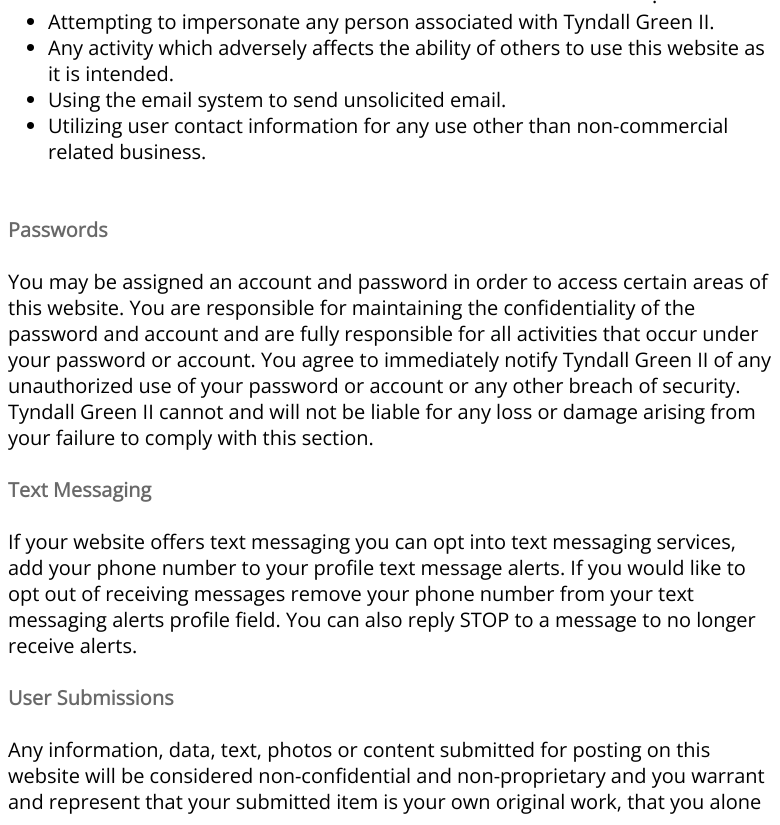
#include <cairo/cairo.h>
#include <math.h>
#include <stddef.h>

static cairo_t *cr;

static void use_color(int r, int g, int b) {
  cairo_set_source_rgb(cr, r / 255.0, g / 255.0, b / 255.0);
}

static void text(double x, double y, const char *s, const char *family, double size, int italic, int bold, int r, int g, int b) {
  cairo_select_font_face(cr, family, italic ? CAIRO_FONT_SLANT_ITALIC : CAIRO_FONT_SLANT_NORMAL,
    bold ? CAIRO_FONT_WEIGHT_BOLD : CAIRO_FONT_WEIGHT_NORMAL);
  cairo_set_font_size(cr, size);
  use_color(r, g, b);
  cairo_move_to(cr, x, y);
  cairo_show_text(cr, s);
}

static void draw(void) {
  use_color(255, 255, 255);
  cairo_paint(cr);
  use_color(0, 0, 0);
  cairo_arc(cr, 30.5, 21.5, 3.5, 0, 2 * M_PI);
  cairo_fill(cr);
  cairo_arc(cr, 30.5, 47.5, 3.5, 0, 2 * M_PI);
  cairo_fill(cr);
  cairo_arc(cr, 30.5, 99.5, 3.5, 0, 2 * M_PI);
  cairo_fill(cr);
  cairo_arc(cr, 30.5, 125.5, 3.5, 0, 2 * M_PI);
  cairo_fill(cr);
  text(652, 3, ".", "Open Sans", 20, 0, 0, 0, 0, 0);
  text(48, 29, "Attempting to impersonate any person associated with Tyndall Green II.", "Open Sans", 20, 0, 0, 0, 0, 0);
  text(48, 55, "Any activity which adversely affects the ability of others to use this website as", "Open Sans", 20, 0, 0, 0, 0, 0);
  text(48, 81, "it is intended.", "Open Sans", 20, 0, 0, 0, 0, 0);
  text(48, 107, "Using the email system to send unsolicited email.", "Open Sans", 20, 0, 0, 0, 0, 0);
  text(48, 133, "Utilizing user contact information for any use other than non-commercial", "Open Sans", 20, 0, 0, 0, 0, 0);
  text(48, 159, "related business.", "Open Sans", 20, 0, 0, 0, 0, 0);
  text(8, 237, "Passwords", "Open Sans", 20, 0, 1, 105, 105, 105);
  text(8, 289, "You may be assigned an account and password in order to access certain areas of", "Open Sans", 20, 0, 0, 0, 0, 0);
  text(8, 315, "this website. You are responsible for maintaining the confidentiality of the", "Open Sans", 20, 0, 0, 0, 0, 0);
  text(8, 341, "password and account and are fully responsible for all activities that occur under", "Open Sans", 20, 0, 0, 0, 0, 0);
  text(8, 367, "your password or account. You agree to immediately notify Tyndall Green II of any", "Open Sans", 20, 0, 0, 0, 0, 0);
  text(8, 393, "unauthorized use of your password or account or any other breach of security.", "Open Sans", 20, 0, 0, 0, 0, 0);
  text(8, 419, "Tyndall Green II cannot and will not be liable for any loss or damage arising from", "Open Sans", 20, 0, 0, 0, 0, 0);
  text(8, 445, "your failure to comply with this section.", "Open Sans", 20, 0, 0, 0, 0, 0);
  text(8, 497, "Text Messaging", "Open Sans", 20, 0, 1, 105, 105, 105);
  text(8, 549, "If your website offers text messaging you can opt into text messaging services,", "Open Sans", 20, 0, 0, 0, 0, 0);
  text(8, 575, "add your phone number to your profile text message alerts. If you would like to", "Open Sans", 20, 0, 0, 0, 0, 0);
  text(8, 601, "opt out of receiving messages remove your phone number from your text", "Open Sans", 20, 0, 0, 0, 0, 0);
  text(8, 627, "messaging alerts profile field. You can also reply STOP to a message to no longer", "Open Sans", 20, 0, 0, 0, 0, 0);
  text(8, 653, "receive alerts.", "Open Sans", 20, 0, 0, 0, 0, 0);
  text(8, 705, "User Submissions", "Open Sans", 20, 0, 1, 105, 105, 105);
  text(8, 757, "Any information, data, text, photos or content submitted for posting on this", "Open Sans", 20, 0, 0, 0, 0, 0);
  text(8, 783, "website will be considered non-confidential and non-proprietary and you warrant", "Open Sans", 20, 0, 0, 0, 0, 0);
  text(8, 809, "and represent that your submitted item is your own original work, that you alone", "Open Sans", 20, 0, 0, 0, 0, 0);
}

int main(void) {
  cairo_surface_t *surface = cairo_image_surface_create(CAIRO_FORMAT_RGB24, 780, 825);
  cr = cairo_create(surface);
  cairo_font_options_t *options = cairo_font_options_create();
  cairo_font_options_set_hint_metrics(options, CAIRO_HINT_METRICS_OFF);
  cairo_font_options_set_hint_style(options, CAIRO_HINT_STYLE_NONE);
  cairo_set_font_options(cr, options);
  cairo_set_miter_limit(cr, 4);
  draw();
  cairo_surface_write_to_png(surface, "out.png");
  cairo_font_options_destroy(options);
  cairo_destroy(cr);
  cairo_surface_destroy(surface);
  return 0;
}
